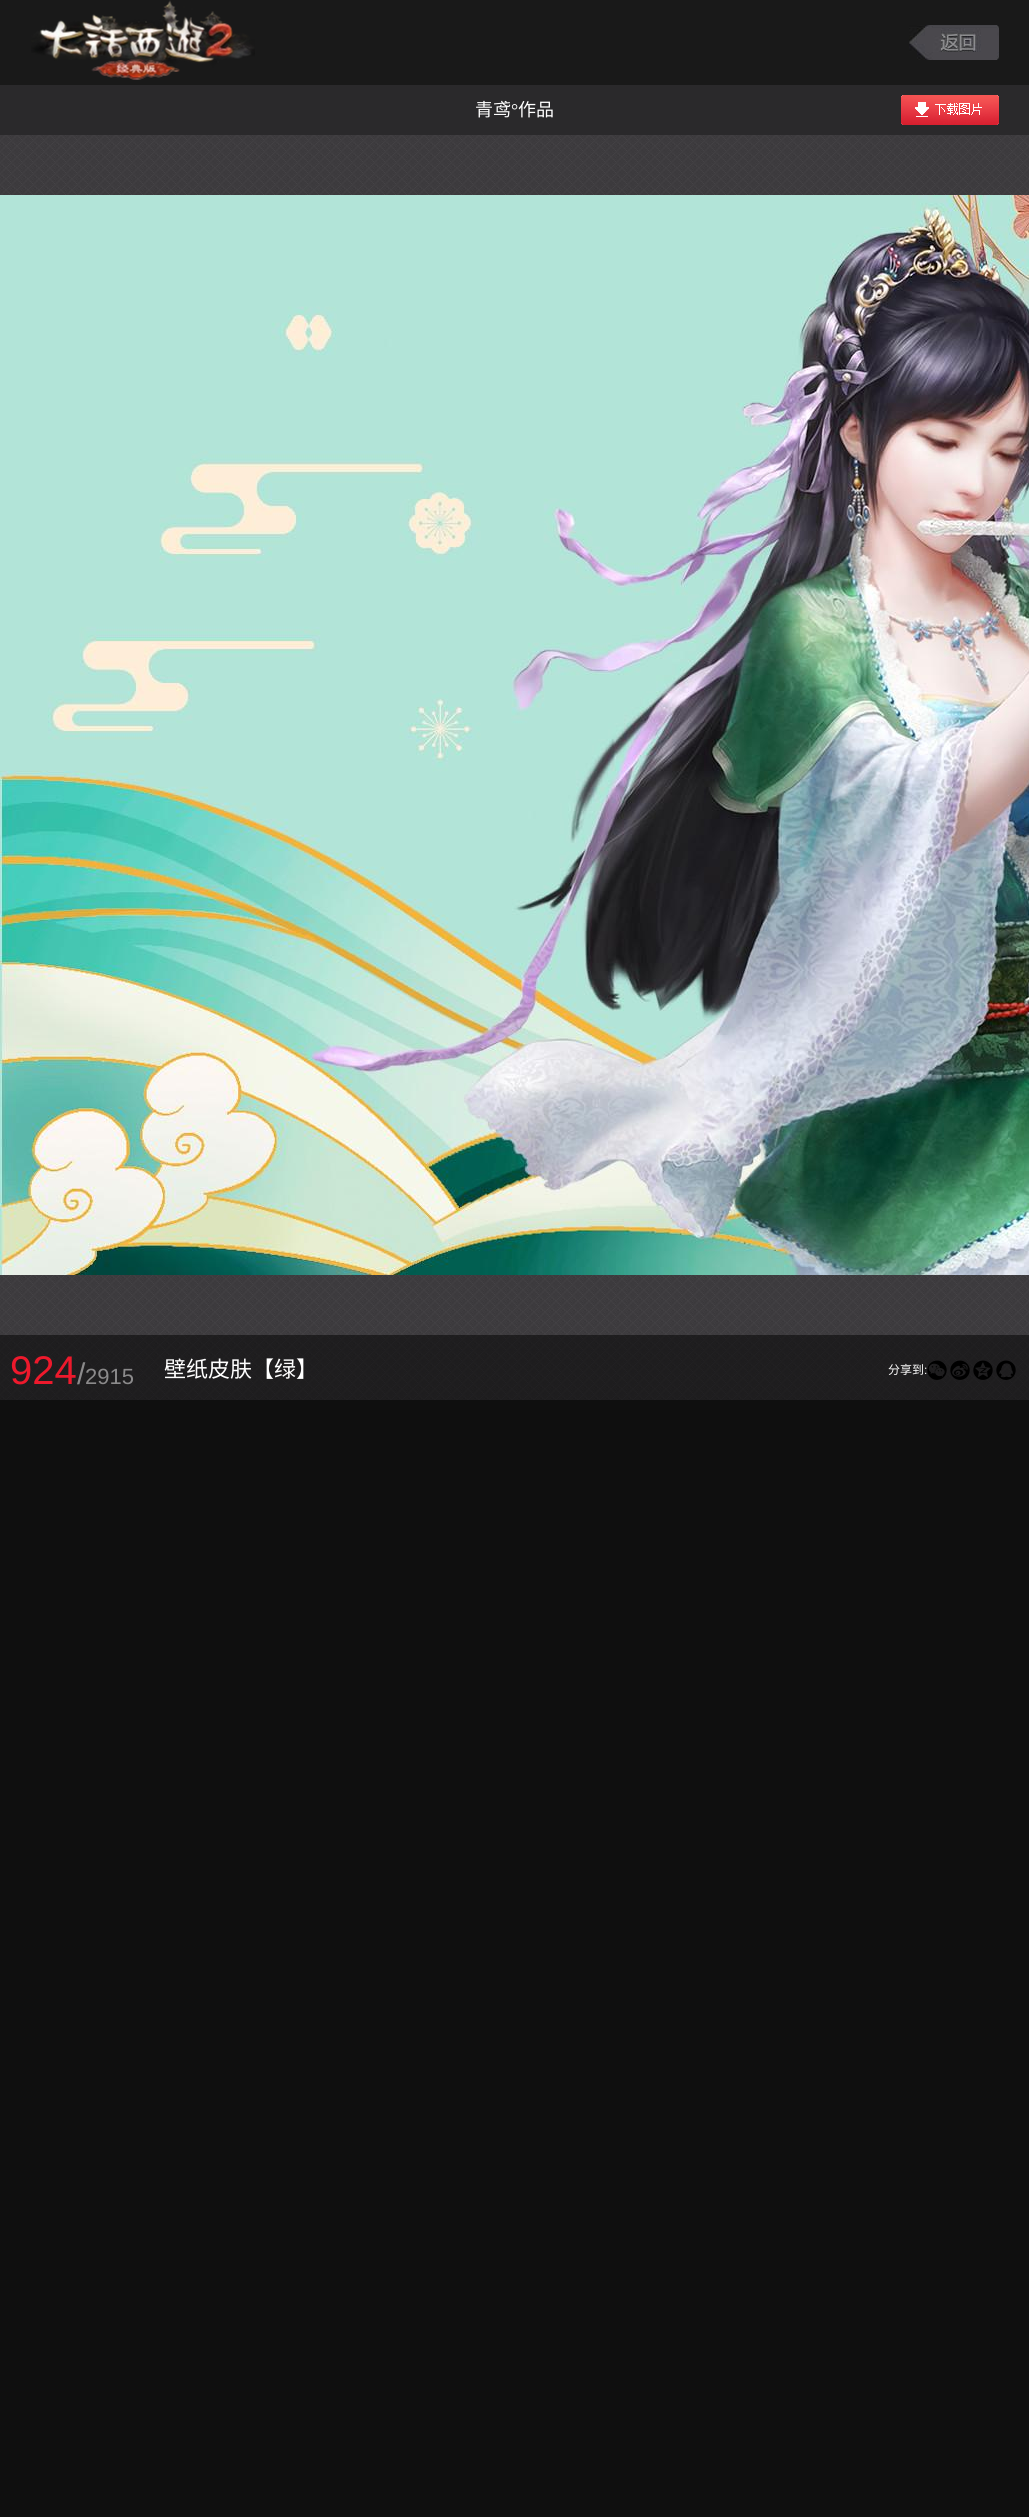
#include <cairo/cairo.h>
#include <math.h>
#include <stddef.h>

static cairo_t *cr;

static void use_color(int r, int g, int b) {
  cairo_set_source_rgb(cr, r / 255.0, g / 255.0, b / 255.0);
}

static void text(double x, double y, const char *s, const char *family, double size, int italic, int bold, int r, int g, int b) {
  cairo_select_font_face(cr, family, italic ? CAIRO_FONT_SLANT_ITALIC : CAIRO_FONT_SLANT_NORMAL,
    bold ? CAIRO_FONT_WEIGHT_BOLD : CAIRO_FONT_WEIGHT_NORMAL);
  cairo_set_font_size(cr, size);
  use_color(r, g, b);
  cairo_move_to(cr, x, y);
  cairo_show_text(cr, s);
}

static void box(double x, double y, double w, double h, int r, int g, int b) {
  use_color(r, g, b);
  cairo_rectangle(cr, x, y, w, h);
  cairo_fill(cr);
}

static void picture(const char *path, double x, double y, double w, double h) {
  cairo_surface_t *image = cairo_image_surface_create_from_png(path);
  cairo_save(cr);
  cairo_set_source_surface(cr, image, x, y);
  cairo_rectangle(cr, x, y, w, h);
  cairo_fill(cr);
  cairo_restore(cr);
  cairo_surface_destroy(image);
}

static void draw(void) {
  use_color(15, 15, 15);
  cairo_paint(cr);
  box(0, 0, 1029, 85, 25, 25, 25);
  picture("img_01.png", 31, 0, 224, 80);
  picture("img_02.png", 909, 25, 90, 35);
  box(0, 85, 1029, 50, 42, 41, 43);
  picture("img_03.png", 901, 95, 98, 30);
  picture("img_04.png", 0, 135, 1029, 1265);
  picture("img_05.png", 0, 195, 1029, 1080);
  cairo_set_source_rgba(cr, 0, 0, 0, 0.5);
  cairo_rectangle(cr, 0, 1335, 1029, 65);
  cairo_fill(cr);
  picture("img_06.png", 927, 1360, 20, 20);
  picture("img_07.png", 950, 1360, 20, 20);
  picture("img_08.png", 973, 1360, 20, 20);
  picture("img_09.png", 996, 1360, 20, 20);
  text(475, 116, "青鸢", "Noto Sans CJK SC", 18, 0, 0, 255, 255, 255);
  text(511, 116, "°", "Liberation Serif", 18, 0, 0, 255, 255, 255);
  text(518, 116, "作品", "Noto Sans CJK SC", 18, 0, 0, 255, 255, 255);
  text(10, 1384, "924", "Liberation Sans", 40, 0, 0, 238, 25, 44);
  text(77, 1384, "/", "Liberation Sans", 30, 0, 0, 139, 138, 139);
  text(85, 1384, "2915", "Liberation Sans", 22, 0, 0, 139, 138, 139);
  text(164, 1377, "壁纸皮肤【绿】", "Noto Sans CJK SC", 22, 0, 0, 255, 255, 255);
  text(888, 1374, "分享到", "Noto Sans CJK SC", 12, 0, 0, 255, 255, 255);
  text(924, 1374, ":", "Liberation Sans", 12, 0, 0, 255, 255, 255);
}

int main(void) {
  cairo_surface_t *surface = cairo_image_surface_create(CAIRO_FORMAT_RGB24, 1029, 2517);
  cr = cairo_create(surface);
  cairo_font_options_t *options = cairo_font_options_create();
  cairo_font_options_set_hint_metrics(options, CAIRO_HINT_METRICS_OFF);
  cairo_font_options_set_hint_style(options, CAIRO_HINT_STYLE_NONE);
  cairo_set_font_options(cr, options);
  cairo_set_miter_limit(cr, 4);
  draw();
  cairo_surface_write_to_png(surface, "out.png");
  cairo_font_options_destroy(options);
  cairo_destroy(cr);
  cairo_surface_destroy(surface);
  return 0;
}
